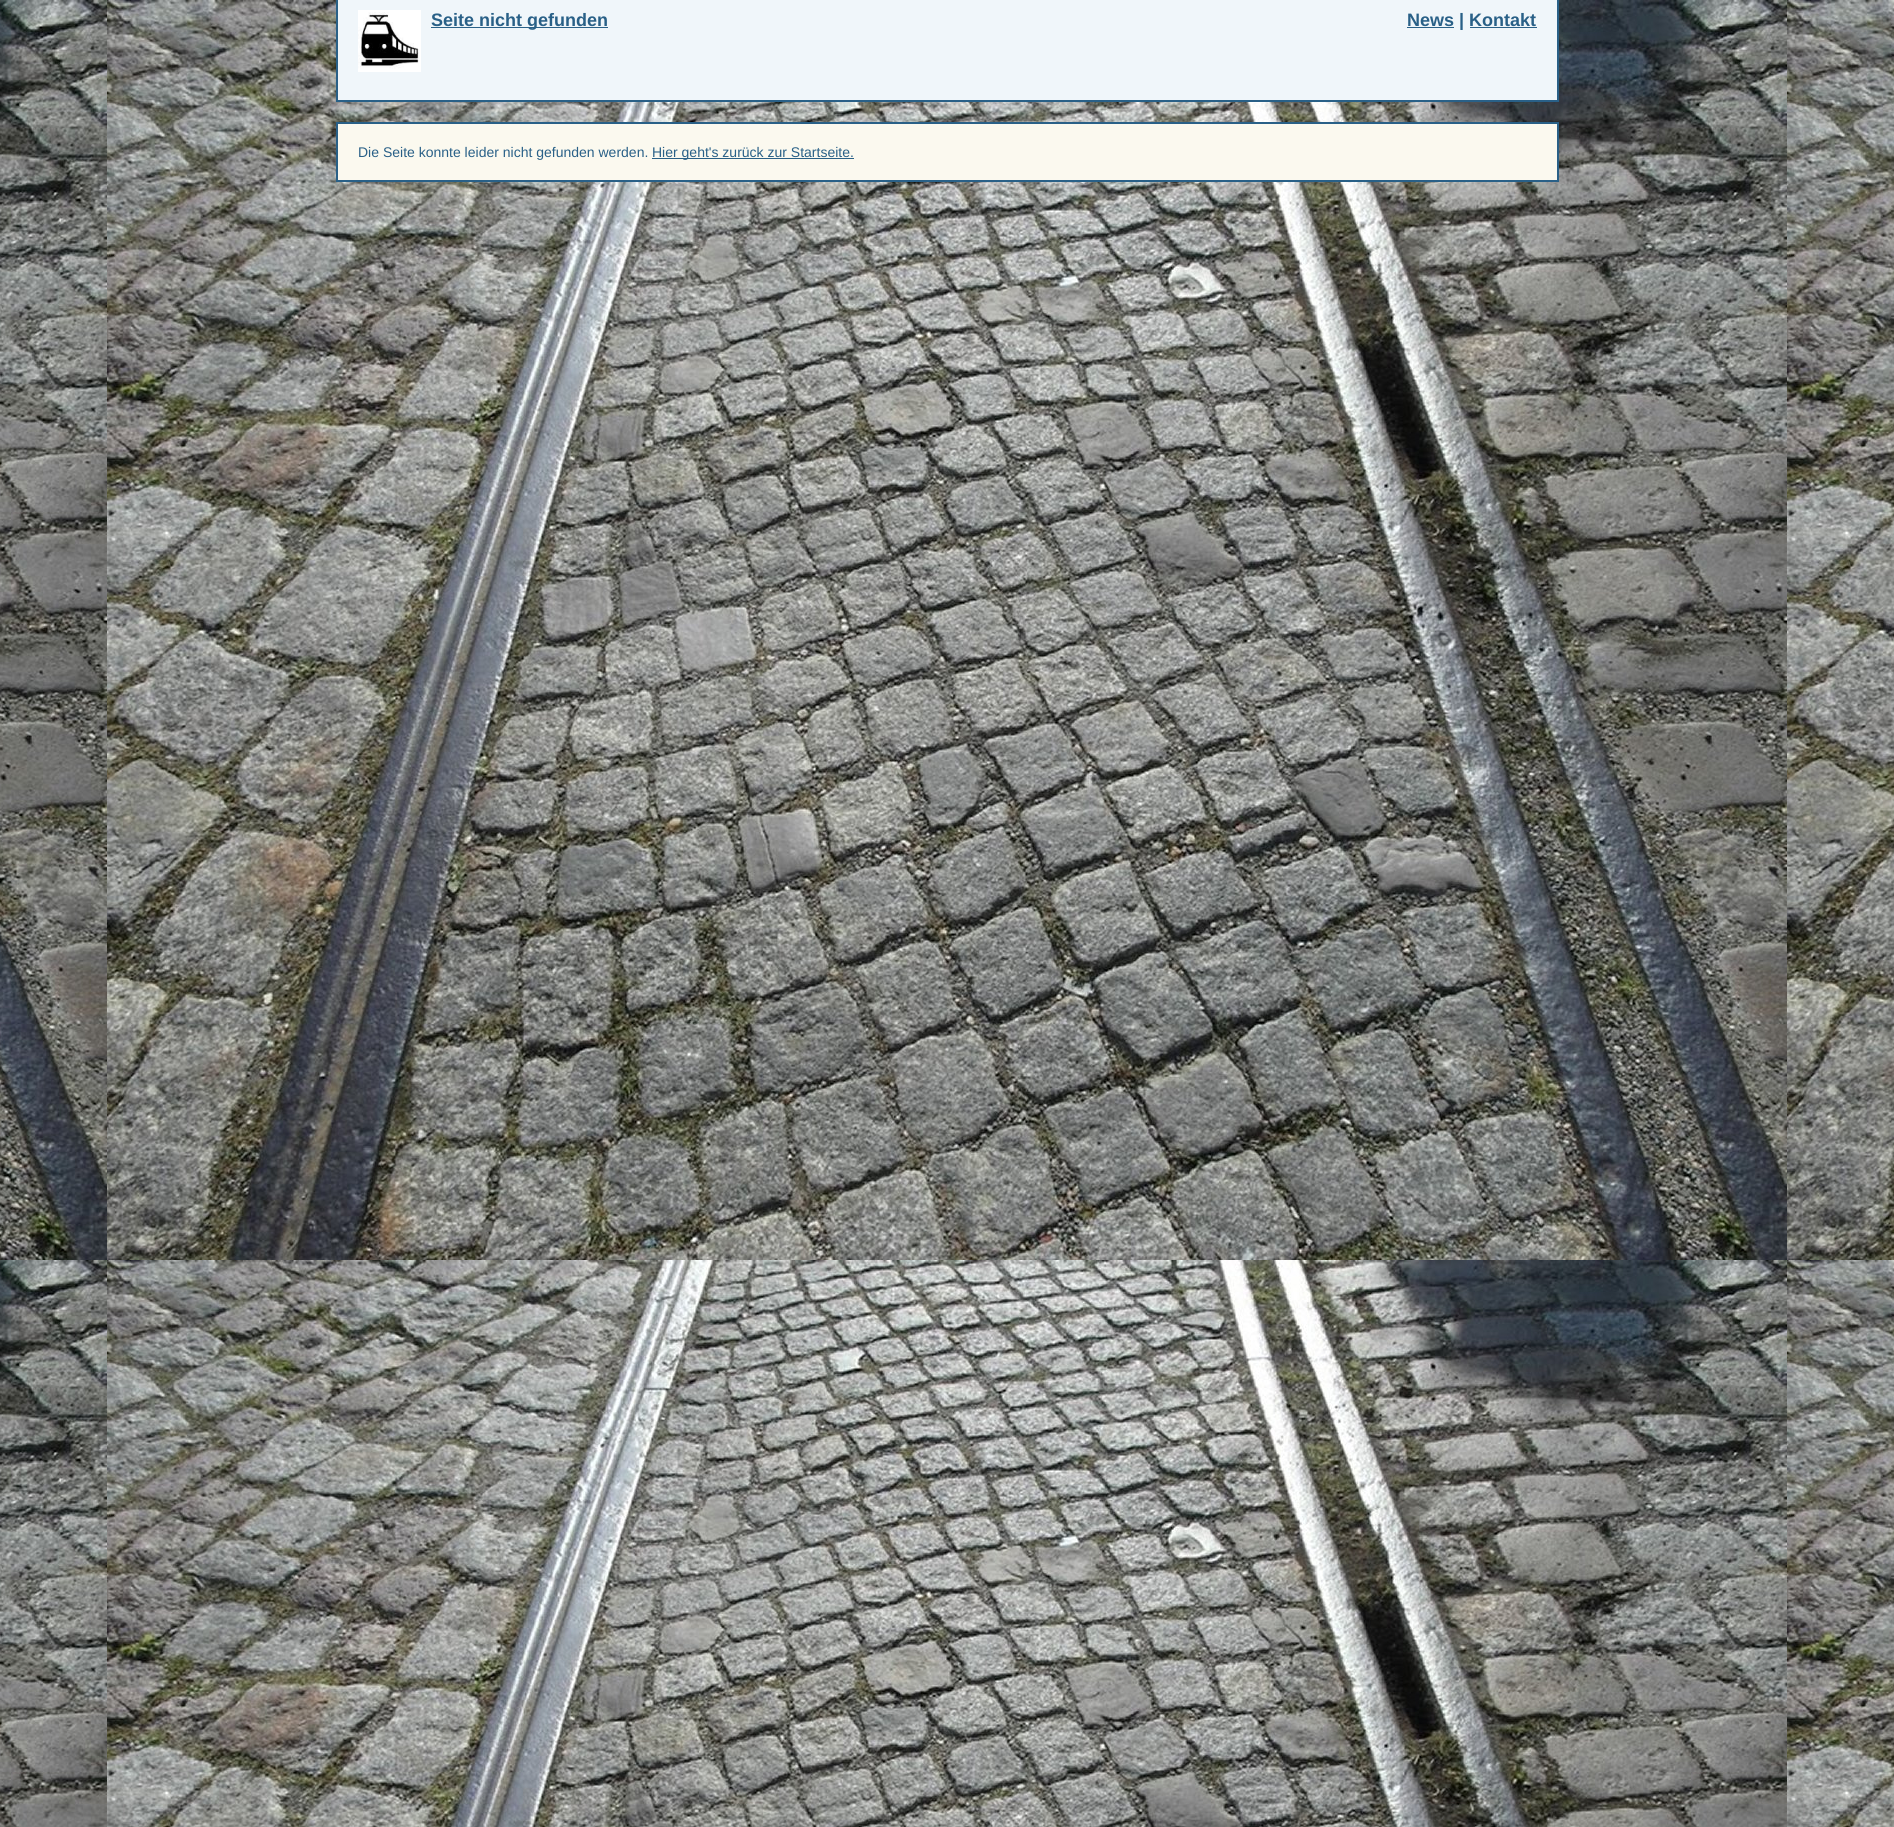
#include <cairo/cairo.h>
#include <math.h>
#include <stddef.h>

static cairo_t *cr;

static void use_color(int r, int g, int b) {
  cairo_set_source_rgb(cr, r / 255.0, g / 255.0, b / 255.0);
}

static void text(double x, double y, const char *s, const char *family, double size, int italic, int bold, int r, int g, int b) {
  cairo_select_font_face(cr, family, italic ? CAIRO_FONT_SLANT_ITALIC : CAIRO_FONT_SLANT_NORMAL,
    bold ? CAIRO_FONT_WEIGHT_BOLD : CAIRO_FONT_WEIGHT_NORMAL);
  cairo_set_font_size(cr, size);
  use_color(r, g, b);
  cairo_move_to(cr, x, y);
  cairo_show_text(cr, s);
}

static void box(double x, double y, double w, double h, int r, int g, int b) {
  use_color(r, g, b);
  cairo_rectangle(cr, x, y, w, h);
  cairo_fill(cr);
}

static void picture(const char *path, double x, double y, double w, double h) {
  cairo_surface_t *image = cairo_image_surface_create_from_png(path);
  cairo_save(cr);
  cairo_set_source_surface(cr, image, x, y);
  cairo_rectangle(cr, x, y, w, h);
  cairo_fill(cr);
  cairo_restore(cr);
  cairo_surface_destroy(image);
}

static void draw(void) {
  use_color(255, 255, 255);
  cairo_paint(cr);
  picture("img_01.png", 0, 0, 1894, 1827);
  box(338, 0, 1219, 100, 240, 246, 250);
  box(1557, 0, 2, 102, 41, 96, 135);
  box(336, 100, 1223, 2, 41, 96, 135);
  box(336, 0, 2, 102, 41, 96, 135);
  picture("img_02.png", 358, 10, 63, 62);
  box(431, 27, 177, 1, 41, 96, 135);
  box(1407, 27, 47, 1, 41, 96, 135);
  box(1470, 27, 67, 1, 41, 96, 135);
  use_color(251, 249, 239);
  cairo_rectangle(cr, 337, 123, 1221, 58);
  cairo_fill_preserve(cr);
  use_color(41, 96, 135);
  cairo_stroke(cr);
  box(652, 158, 202, 1, 41, 96, 135);
  text(431, 26, "Seite nicht gefunden", "Liberation Sans", 18, 0, 1, 41, 96, 135);
  text(1407, 26, "News | Kontakt", "Liberation Sans", 18, 0, 1, 41, 96, 135);
  text(358, 157, "Die Seite konnte leider nicht gefunden werden.", "Liberation Sans", 14, 0, 0, 41, 96, 135);
  text(652, 157, "Hier geht's zurück zur Startseite.", "Liberation Sans", 14, 0, 0, 41, 96, 135);
}

int main(void) {
  cairo_surface_t *surface = cairo_image_surface_create(CAIRO_FORMAT_RGB24, 1894, 1827);
  cr = cairo_create(surface);
  cairo_font_options_t *options = cairo_font_options_create();
  cairo_font_options_set_hint_metrics(options, CAIRO_HINT_METRICS_OFF);
  cairo_font_options_set_hint_style(options, CAIRO_HINT_STYLE_NONE);
  cairo_set_font_options(cr, options);
  cairo_set_miter_limit(cr, 4);
  draw();
  cairo_surface_write_to_png(surface, "out.png");
  cairo_font_options_destroy(options);
  cairo_destroy(cr);
  cairo_surface_destroy(surface);
  return 0;
}
